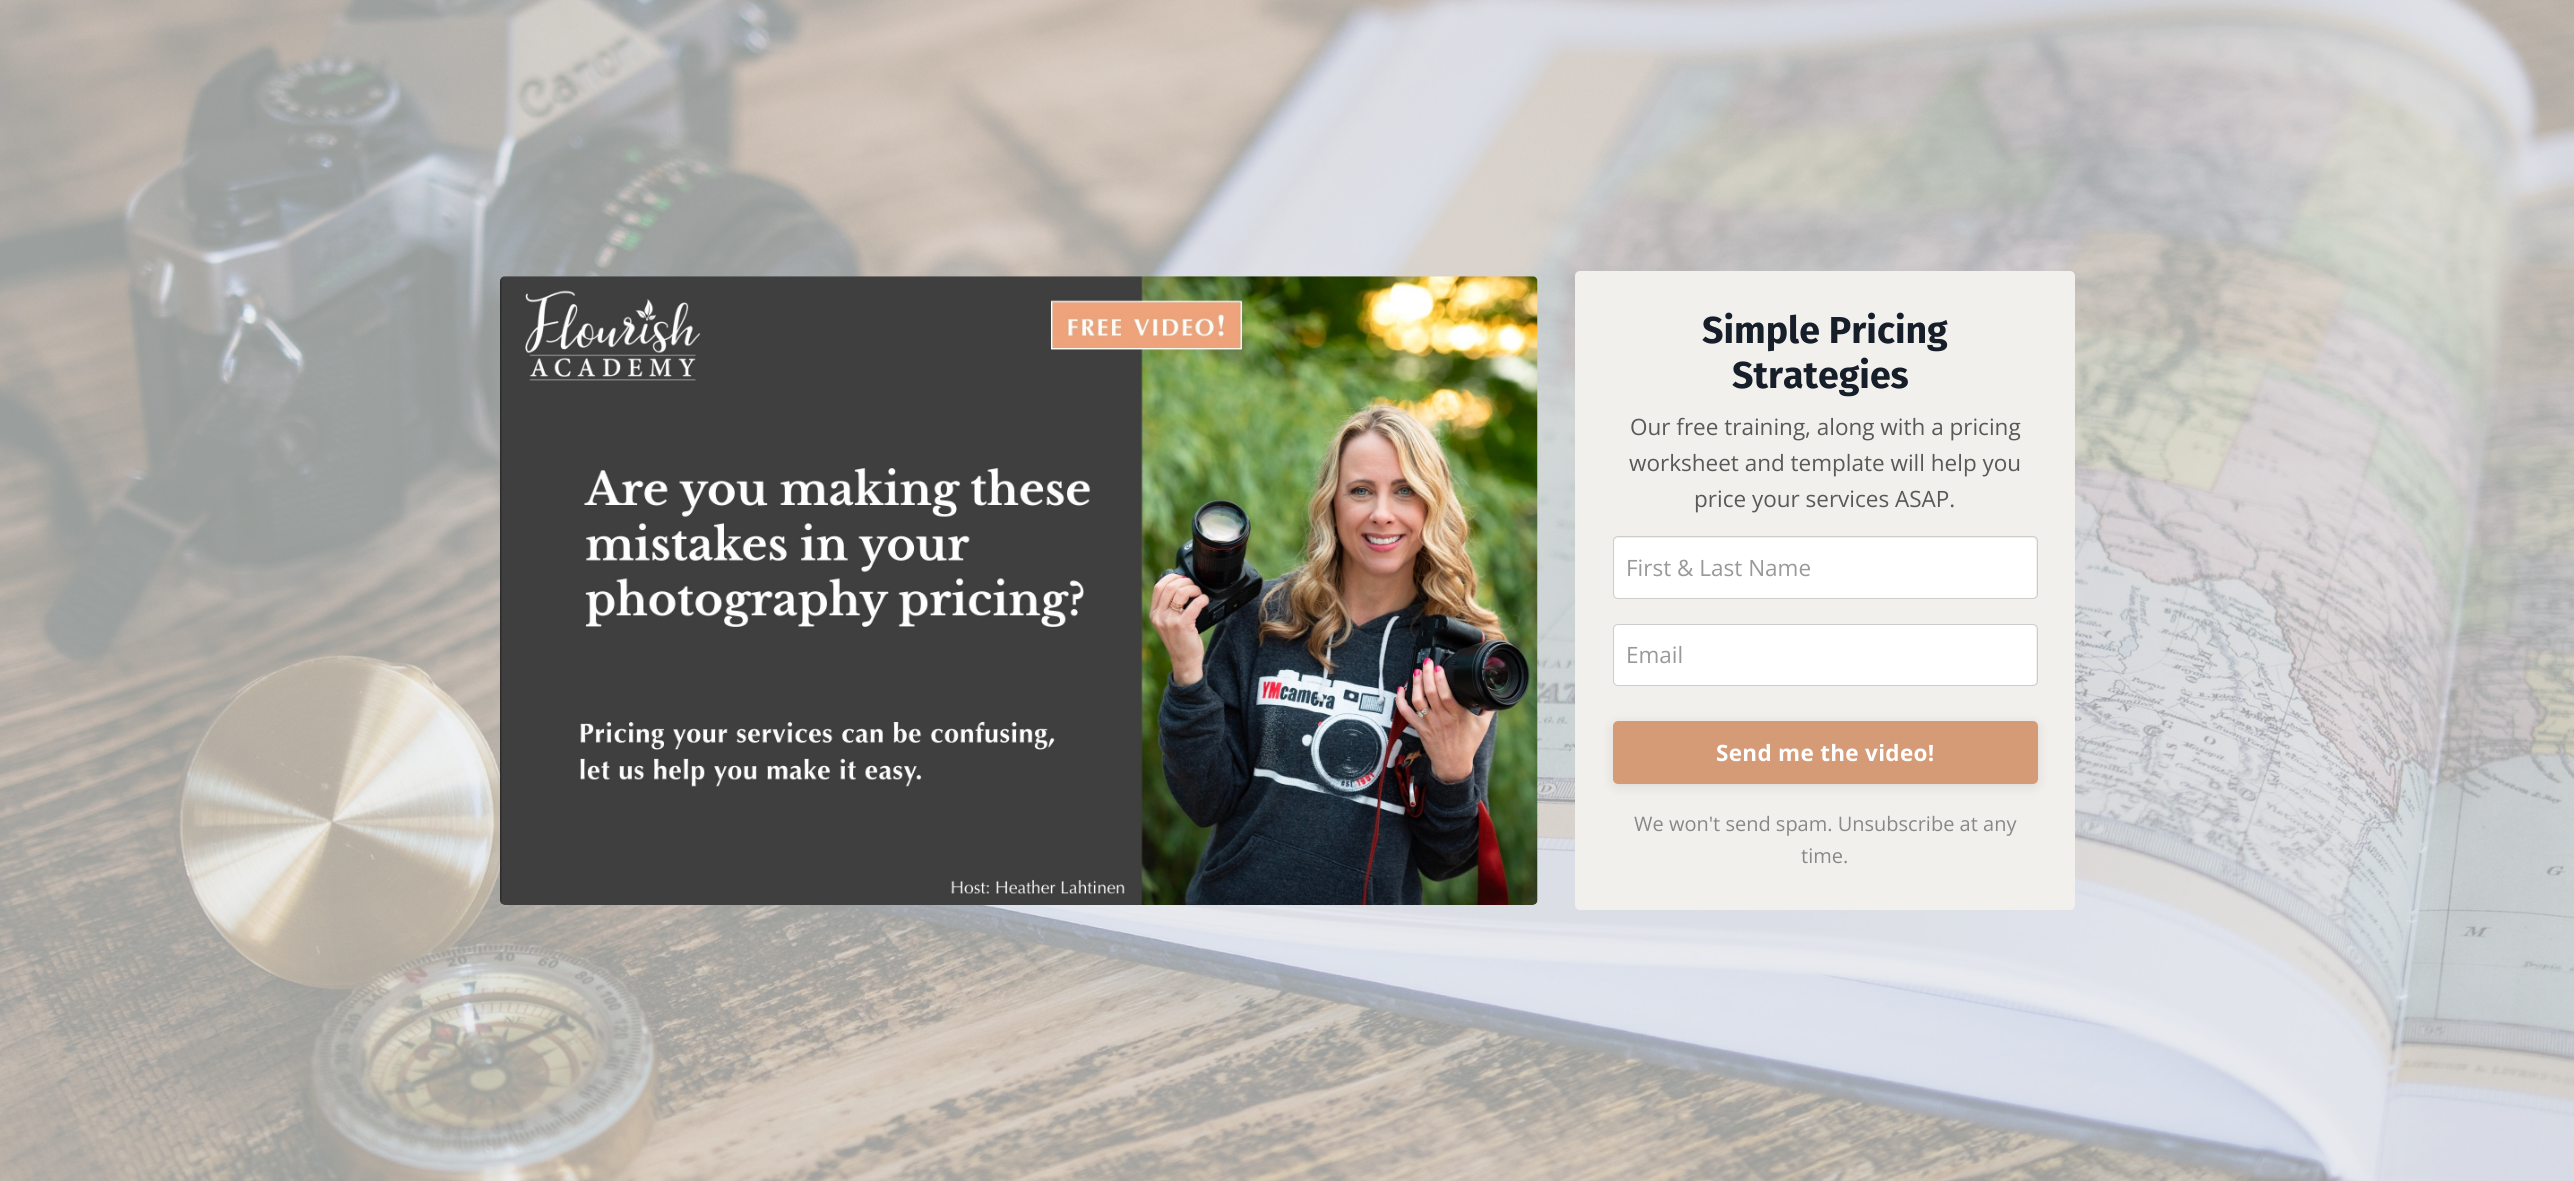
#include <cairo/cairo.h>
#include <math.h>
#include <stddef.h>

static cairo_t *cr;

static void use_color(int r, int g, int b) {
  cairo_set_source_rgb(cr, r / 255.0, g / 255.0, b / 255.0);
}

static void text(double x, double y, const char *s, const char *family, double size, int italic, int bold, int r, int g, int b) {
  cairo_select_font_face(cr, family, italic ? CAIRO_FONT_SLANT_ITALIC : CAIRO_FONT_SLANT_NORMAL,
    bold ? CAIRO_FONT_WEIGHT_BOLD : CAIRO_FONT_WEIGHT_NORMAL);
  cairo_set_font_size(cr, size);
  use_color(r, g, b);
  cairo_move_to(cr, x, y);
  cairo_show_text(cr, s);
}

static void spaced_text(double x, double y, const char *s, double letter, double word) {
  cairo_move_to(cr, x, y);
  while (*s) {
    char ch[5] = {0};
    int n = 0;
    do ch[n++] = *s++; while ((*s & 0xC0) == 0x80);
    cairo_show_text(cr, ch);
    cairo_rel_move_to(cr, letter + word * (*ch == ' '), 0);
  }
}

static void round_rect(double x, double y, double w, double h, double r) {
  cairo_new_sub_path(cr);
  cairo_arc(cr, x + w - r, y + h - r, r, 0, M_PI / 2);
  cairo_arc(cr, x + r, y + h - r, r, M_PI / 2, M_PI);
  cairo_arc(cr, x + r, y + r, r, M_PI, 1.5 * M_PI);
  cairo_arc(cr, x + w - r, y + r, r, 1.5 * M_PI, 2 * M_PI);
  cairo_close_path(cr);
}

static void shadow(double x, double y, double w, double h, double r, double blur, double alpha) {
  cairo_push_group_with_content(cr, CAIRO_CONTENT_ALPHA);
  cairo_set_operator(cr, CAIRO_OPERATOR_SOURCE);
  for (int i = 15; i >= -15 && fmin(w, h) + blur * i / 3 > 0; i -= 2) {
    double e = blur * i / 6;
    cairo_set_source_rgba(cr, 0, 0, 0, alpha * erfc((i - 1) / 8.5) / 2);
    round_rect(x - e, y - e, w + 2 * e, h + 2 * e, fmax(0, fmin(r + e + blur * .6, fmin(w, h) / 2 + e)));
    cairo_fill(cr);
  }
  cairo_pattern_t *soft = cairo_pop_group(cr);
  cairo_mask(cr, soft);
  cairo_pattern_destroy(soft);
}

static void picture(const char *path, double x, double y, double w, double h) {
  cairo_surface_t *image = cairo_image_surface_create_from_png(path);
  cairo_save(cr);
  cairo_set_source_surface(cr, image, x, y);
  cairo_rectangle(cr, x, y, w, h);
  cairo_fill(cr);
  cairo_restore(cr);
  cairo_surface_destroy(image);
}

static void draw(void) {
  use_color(255, 255, 255);
  cairo_paint(cr);
  picture("img_01.png", 0, 0, 2574, 1181);
  picture("img_02.png", 500, 276, 1038, 629);
  use_color(242, 240, 236);
  round_rect(1575, 271, 500, 639, 5);
  cairo_fill(cr);
  use_color(255, 255, 255);
  round_rect(1614, 538, 422, 60, 4);
  cairo_fill(cr);
  round_rect(1613.5, 536.5, 424, 62, 4.5);
  cairo_set_source_rgba(cr, 0, 0, 0, 0.15);
  cairo_set_line_width(cr, 1);
  cairo_stroke(cr);
  use_color(255, 255, 255);
  round_rect(1614, 625, 422, 60, 4);
  cairo_fill(cr);
  round_rect(1613.5, 624.5, 424, 61, 4.5);
  cairo_set_source_rgba(cr, 0, 0, 0, 0.15);
  cairo_stroke(cr);
  use_color(0, 0, 0);
  shadow(1613, 724, 425, 62, 5, 6, 0.1);
  use_color(213, 154, 118);
  round_rect(1614.5, 722.5, 422, 60, 3.5);
  cairo_fill_preserve(cr);
  cairo_set_line_width(cr, 3);
  cairo_stroke(cr);
  text(1702, 343, "Simple Pricing", "Fira Sans", 37.5, 0, 1, 22, 30, 42);
  text(1732, 388, "Strategies", "Fira Sans", 37.5, 0, 1, 22, 30, 42);
  text(1630, 435, "Our free training, along with a pricing", "Open Sans", 22.5, 0, 0, 89, 89, 89);
  text(1629, 471, "worksheet and template will help you", "Open Sans", 22.5, 0, 0, 89, 89, 89);
  text(1694, 507, "price your services ASAP.", "Open Sans", 22.5, 0, 0, 89, 89, 89);
  text(1626, 576, "First & Last Name", "Open Sans", 22.5, 0, 0, 153, 153, 153);
  text(1626, 663, "Email", "Open Sans", 22.5, 0, 0, 153, 153, 153);
  cairo_select_font_face(cr, "Open Sans", CAIRO_FONT_SLANT_NORMAL, CAIRO_FONT_WEIGHT_BOLD);
  use_color(255, 255, 255);
  spaced_text(1716, 761, "Send me the video!", 0.3, 0);
  text(1634, 831, "We won't send spam. Unsubscribe at any", "Open Sans", 20, 0, 0, 136, 136, 136);
  text(1801, 863, "time.", "Open Sans", 20, 0, 0, 136, 136, 136);
}

int main(void) {
  cairo_surface_t *surface = cairo_image_surface_create(CAIRO_FORMAT_RGB24, 2574, 1181);
  cr = cairo_create(surface);
  cairo_font_options_t *options = cairo_font_options_create();
  cairo_font_options_set_hint_metrics(options, CAIRO_HINT_METRICS_OFF);
  cairo_font_options_set_hint_style(options, CAIRO_HINT_STYLE_NONE);
  cairo_set_font_options(cr, options);
  cairo_set_miter_limit(cr, 4);
  draw();
  cairo_surface_write_to_png(surface, "out.png");
  cairo_font_options_destroy(options);
  cairo_destroy(cr);
  cairo_surface_destroy(surface);
  return 0;
}
